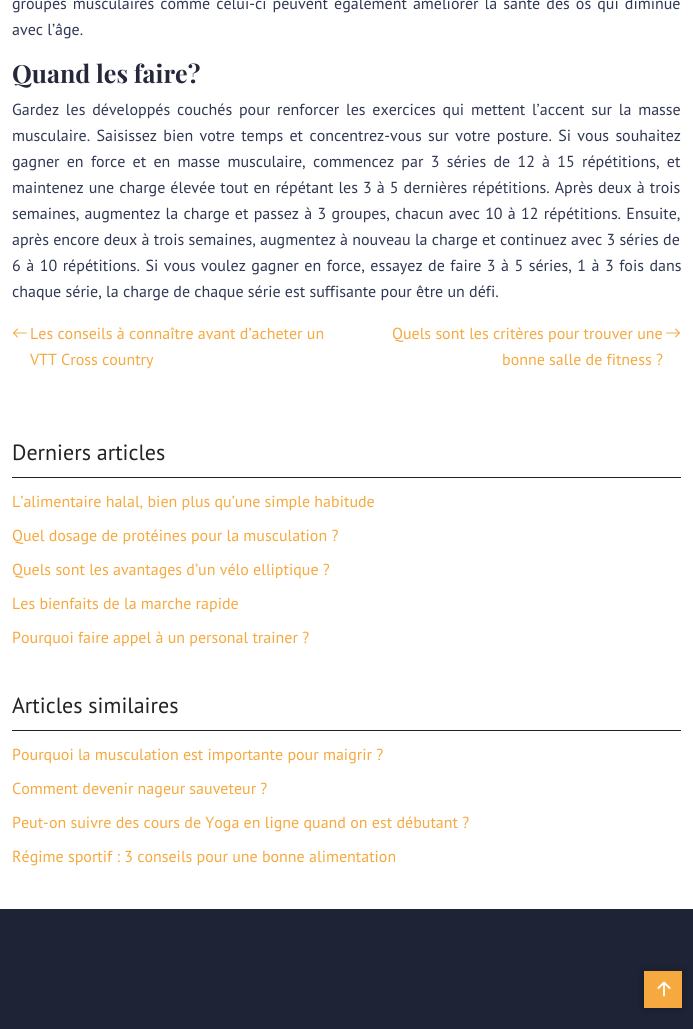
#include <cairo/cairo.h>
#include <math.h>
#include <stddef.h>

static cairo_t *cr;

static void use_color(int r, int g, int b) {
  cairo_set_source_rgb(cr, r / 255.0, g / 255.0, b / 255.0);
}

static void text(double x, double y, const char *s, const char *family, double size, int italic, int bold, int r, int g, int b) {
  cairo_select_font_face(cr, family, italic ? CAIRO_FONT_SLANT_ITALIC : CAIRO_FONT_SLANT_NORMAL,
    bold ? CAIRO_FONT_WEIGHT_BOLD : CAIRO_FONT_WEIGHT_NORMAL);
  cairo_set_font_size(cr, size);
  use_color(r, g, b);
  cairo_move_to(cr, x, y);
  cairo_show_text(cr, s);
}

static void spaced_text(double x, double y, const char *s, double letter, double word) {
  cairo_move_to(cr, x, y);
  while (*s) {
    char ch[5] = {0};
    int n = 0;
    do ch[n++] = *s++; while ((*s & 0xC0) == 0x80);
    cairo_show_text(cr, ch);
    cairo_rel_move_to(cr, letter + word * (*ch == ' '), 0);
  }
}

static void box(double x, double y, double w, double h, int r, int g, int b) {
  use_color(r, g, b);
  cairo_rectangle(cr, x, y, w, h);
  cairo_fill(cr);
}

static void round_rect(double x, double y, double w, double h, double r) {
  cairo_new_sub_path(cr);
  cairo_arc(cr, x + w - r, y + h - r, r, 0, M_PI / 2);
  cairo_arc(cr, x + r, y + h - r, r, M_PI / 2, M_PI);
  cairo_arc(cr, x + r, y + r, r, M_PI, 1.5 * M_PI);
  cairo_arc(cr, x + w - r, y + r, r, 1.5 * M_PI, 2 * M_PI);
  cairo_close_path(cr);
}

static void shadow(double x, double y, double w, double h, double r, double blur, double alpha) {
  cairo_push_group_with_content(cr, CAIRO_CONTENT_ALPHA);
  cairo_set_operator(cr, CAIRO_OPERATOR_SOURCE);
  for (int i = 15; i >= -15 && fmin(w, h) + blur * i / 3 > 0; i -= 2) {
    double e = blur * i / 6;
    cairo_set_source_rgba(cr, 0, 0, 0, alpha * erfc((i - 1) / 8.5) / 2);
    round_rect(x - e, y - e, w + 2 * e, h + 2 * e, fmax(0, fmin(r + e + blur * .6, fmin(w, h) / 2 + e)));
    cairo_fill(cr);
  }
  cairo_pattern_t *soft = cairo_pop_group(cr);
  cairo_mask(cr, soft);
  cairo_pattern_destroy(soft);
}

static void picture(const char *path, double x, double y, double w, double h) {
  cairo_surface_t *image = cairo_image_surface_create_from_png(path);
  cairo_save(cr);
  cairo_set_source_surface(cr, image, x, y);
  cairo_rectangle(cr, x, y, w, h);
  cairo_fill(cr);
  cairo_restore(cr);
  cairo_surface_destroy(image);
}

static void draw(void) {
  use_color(255, 255, 255);
  cairo_paint(cr);
  picture("img_01.png", 13, 328, 14, 10);
  picture("img_02.png", 666, 328, 14, 10);
  box(12, 477, 669, 1, 34, 34, 34);
  box(12, 730, 669, 1, 34, 34, 34);
  box(0, 909, 693, 120, 30, 36, 54);
  use_color(0, 0, 0);
  shadow(643, 970, 40, 39, 0, 5, 0.2);
  box(644, 971, 38, 37, 245, 169, 63);
  picture("img_03.png", 657, 981, 14, 16);
  cairo_select_font_face(cr, "PT Sans", CAIRO_FONT_SLANT_NORMAL, CAIRO_FONT_WEIGHT_NORMAL);
  cairo_set_font_size(cr, 16);
  use_color(47, 55, 83);
  spaced_text(12, 9, "groupes musculaires comme celui-ci peuvent également améliorer la santé des os qui diminue", 0, 1.8);
  text(12, 35, "avec l’âge.", "PT Sans", 16, 0, 0, 47, 55, 83);
  text(12, 83, "Quand les faire?", "Playfair Display", 25, 0, 1, 37, 40, 58);
  cairo_select_font_face(cr, "PT Sans", CAIRO_FONT_SLANT_NORMAL, CAIRO_FONT_WEIGHT_NORMAL);
  cairo_set_font_size(cr, 16);
  use_color(47, 55, 83);
  spaced_text(12, 115, "Gardez les développés couchés pour renforcer les exercices qui mettent l’accent sur la masse", 0, 2.5);
  spaced_text(12, 141, "musculaire. Saisissez bien votre temps et concentrez-vous sur votre posture. Si vous souhaitez", 0, 2.1);
  spaced_text(12, 167, "gagner en force et en masse musculaire, commencez par 3 séries de 12 à 15 répétitions, et", 0, 3);
  spaced_text(12, 193, "maintenez une charge élevée tout en répétant les 3 à 5 dernières répétitions. Après deux à trois", 0, 0.8);
  spaced_text(12, 219, "semaines, augmentez la charge et passez à 3 groupes, chacun avec 10 à 12 répétitions. Ensuite,", 0, 1);
  text(12, 245, "après encore deux à trois semaines, augmentez à nouveau la charge et continuez avec 3 séries de", "PT Sans", 16, 0, 0, 47, 55, 83);
  spaced_text(12, 271, "6 à 10 répétitions. Si vous voulez gagner en force, essayez de faire 3 à 5 séries, 1 à 3 fois dans", 0, 1.25);
  text(12, 297, "chaque série, la charge de chaque série est suffisante pour être un défi.", "PT Sans", 16, 0, 0, 47, 55, 83);
  text(30, 339, "Les conseils à connaître avant d’acheter un", "PT Sans", 16, 0, 0, 245, 169, 63);
  text(30, 365, "VTT Cross country", "PT Sans", 16, 0, 0, 245, 169, 63);
  text(392, 339, "Quels sont les critères pour trouver une", "PT Sans", 16, 0, 0, 245, 169, 63);
  text(502, 365, "bonne salle de fitness ?", "PT Sans", 16, 0, 0, 245, 169, 63);
  text(12, 460, "Derniers articles", "PT Sans", 22, 0, 0, 34, 34, 34);
  text(12, 507, "L’alimentaire halal, bien plus qu’une simple habitude", "PT Sans", 16, 0, 0, 245, 169, 63);
  text(12, 541, "Quel dosage de protéines pour la musculation ?", "PT Sans", 16, 0, 0, 245, 169, 63);
  text(12, 575, "Quels sont les avantages d’un vélo elliptique ?", "PT Sans", 16, 0, 0, 245, 169, 63);
  text(12, 609, "Les bienfaits de la marche rapide", "PT Sans", 16, 0, 0, 245, 169, 63);
  text(12, 643, "Pourquoi faire appel à un personal trainer ?", "PT Sans", 16, 0, 0, 245, 169, 63);
  text(12, 713, "Articles similaires", "PT Sans", 22, 0, 0, 34, 34, 34);
  text(12, 760, "Pourquoi la musculation est importante pour maigrir ?", "PT Sans", 16, 0, 0, 245, 169, 63);
  text(12, 794, "Comment devenir nageur sauveteur ?", "PT Sans", 16, 0, 0, 245, 169, 63);
  text(12, 828, "Peut-on suivre des cours de Yoga en ligne quand on est débutant ?", "PT Sans", 16, 0, 0, 245, 169, 63);
  text(12, 862, "Régime sportif : 3 conseils pour une bonne alimentation", "PT Sans", 16, 0, 0, 245, 169, 63);
}

int main(void) {
  cairo_surface_t *surface = cairo_image_surface_create(CAIRO_FORMAT_RGB24, 693, 1029);
  cr = cairo_create(surface);
  cairo_font_options_t *options = cairo_font_options_create();
  cairo_font_options_set_hint_metrics(options, CAIRO_HINT_METRICS_OFF);
  cairo_font_options_set_hint_style(options, CAIRO_HINT_STYLE_NONE);
  cairo_set_font_options(cr, options);
  cairo_set_miter_limit(cr, 4);
  draw();
  cairo_surface_write_to_png(surface, "out.png");
  cairo_font_options_destroy(options);
  cairo_destroy(cr);
  cairo_surface_destroy(surface);
  return 0;
}
